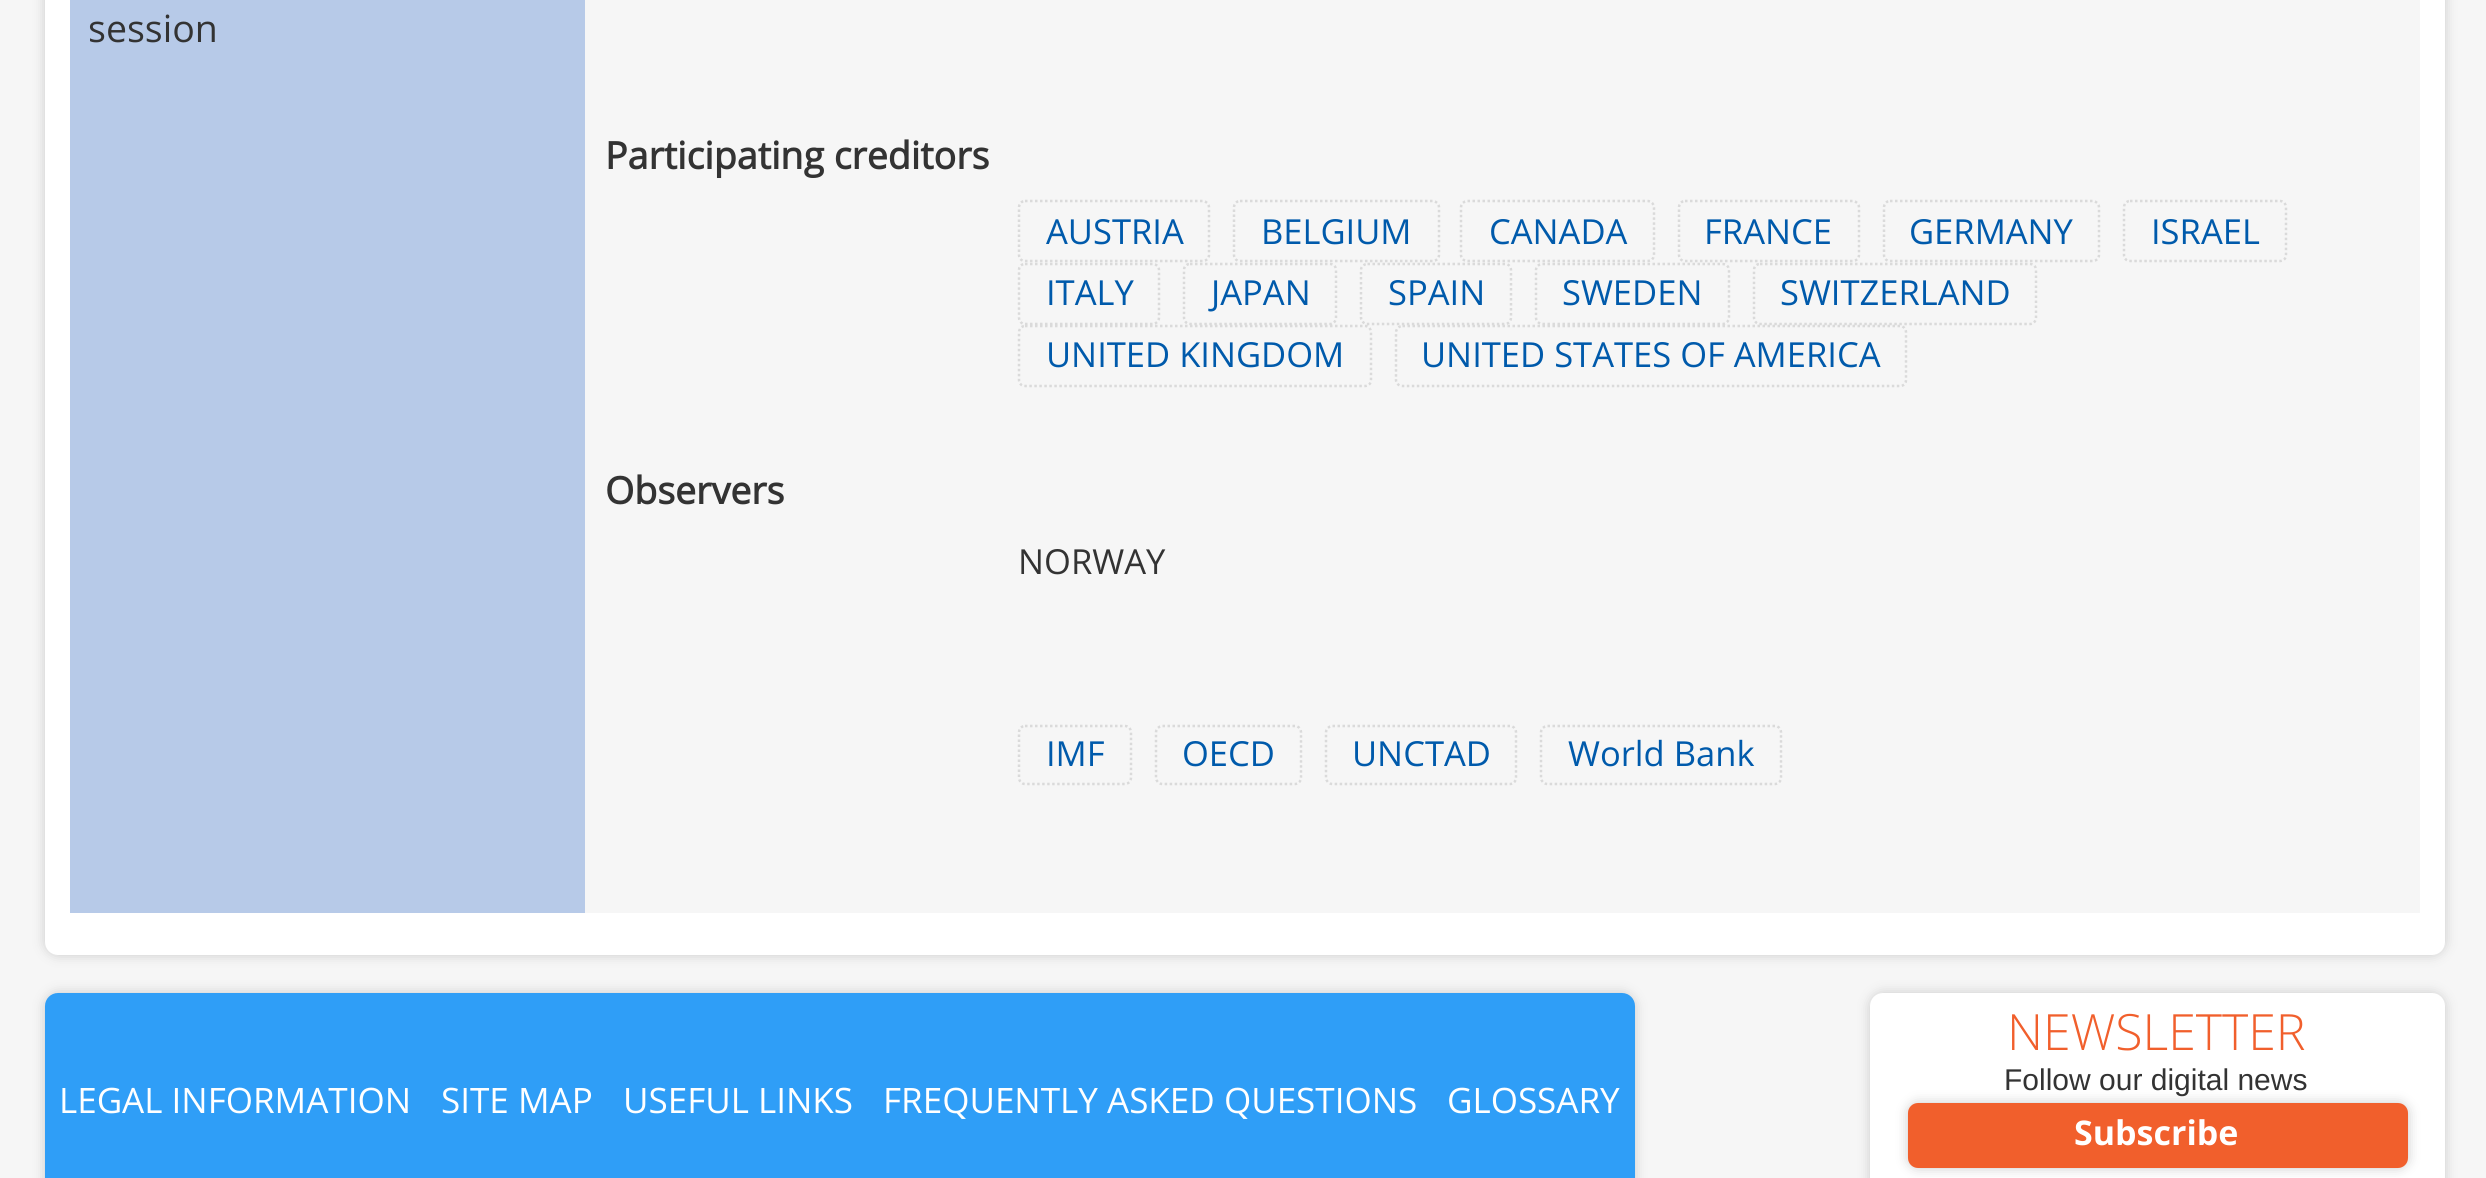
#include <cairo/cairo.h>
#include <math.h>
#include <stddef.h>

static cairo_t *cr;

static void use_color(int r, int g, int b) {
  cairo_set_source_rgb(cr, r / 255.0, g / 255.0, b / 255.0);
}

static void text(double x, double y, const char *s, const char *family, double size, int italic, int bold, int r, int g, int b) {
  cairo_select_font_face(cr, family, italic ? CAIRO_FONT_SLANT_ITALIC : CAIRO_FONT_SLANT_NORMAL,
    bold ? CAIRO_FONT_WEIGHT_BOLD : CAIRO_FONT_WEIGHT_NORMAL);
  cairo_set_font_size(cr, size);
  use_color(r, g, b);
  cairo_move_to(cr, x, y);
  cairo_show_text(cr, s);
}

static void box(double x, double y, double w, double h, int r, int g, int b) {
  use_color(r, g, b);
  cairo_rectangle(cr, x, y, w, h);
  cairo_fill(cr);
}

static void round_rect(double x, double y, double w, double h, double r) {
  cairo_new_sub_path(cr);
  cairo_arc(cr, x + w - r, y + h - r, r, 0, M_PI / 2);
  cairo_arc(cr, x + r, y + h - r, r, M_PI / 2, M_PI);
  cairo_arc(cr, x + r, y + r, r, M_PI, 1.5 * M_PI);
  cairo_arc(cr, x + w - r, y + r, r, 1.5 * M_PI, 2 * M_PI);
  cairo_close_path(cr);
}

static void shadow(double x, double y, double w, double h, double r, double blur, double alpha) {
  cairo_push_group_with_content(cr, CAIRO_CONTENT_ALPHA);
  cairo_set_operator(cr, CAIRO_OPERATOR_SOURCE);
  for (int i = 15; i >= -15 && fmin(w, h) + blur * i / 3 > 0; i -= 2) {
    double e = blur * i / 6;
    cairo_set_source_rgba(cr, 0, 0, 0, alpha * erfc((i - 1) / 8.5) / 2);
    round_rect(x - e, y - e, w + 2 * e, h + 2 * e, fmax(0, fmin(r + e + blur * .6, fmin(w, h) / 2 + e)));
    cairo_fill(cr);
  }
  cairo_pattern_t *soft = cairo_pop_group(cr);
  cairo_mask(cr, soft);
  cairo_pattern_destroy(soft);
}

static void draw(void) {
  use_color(246, 246, 246);
  cairo_paint(cr);
  use_color(204, 204, 204);
  shadow(45, -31, 2400, 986, 13, 6, 1);
  use_color(255, 255, 255);
  round_rect(45, -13, 2400, 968, 13);
  cairo_fill(cr);
  box(70, 0, 515, 913, 183, 202, 232);
  box(585, 0, 1835, 913, 246, 246, 246);
  cairo_new_path(cr);
  cairo_move_to(cr, 1025, 201);
  cairo_line_to(cr, 1202.5, 201);
  cairo_curve_to(cr, 1206, 201, 1209, 204, 1209, 207.5);
  cairo_line_to(cr, 1209, 255);
  cairo_curve_to(cr, 1209, 258.5, 1206, 261, 1202.5, 261);
  cairo_line_to(cr, 1025, 261);
  cairo_curve_to(cr, 1021.5, 261, 1019, 258.5, 1019, 255);
  cairo_line_to(cr, 1019, 207.5);
  cairo_curve_to(cr, 1019, 204, 1021.5, 201, 1025, 201);
  cairo_close_path(cr);
  use_color(218, 218, 218);
  cairo_set_line_width(cr, 2.5);
  cairo_set_dash(cr, (double[]){2.5, 2.5}, 2, 0);
  cairo_stroke(cr);
  cairo_new_path(cr);
  cairo_move_to(cr, 1240, 201);
  cairo_line_to(cr, 1432.5, 201);
  cairo_curve_to(cr, 1436, 201, 1439, 204, 1439, 207.5);
  cairo_line_to(cr, 1439, 255);
  cairo_curve_to(cr, 1439, 258.5, 1436, 261, 1432.5, 261);
  cairo_line_to(cr, 1240, 261);
  cairo_curve_to(cr, 1236.5, 261, 1234, 258.5, 1234, 255);
  cairo_line_to(cr, 1234, 207.5);
  cairo_curve_to(cr, 1234, 204, 1236.5, 201, 1240, 201);
  cairo_close_path(cr);
  cairo_stroke(cr);
  cairo_new_path(cr);
  cairo_move_to(cr, 1467.5, 201);
  cairo_line_to(cr, 1647.5, 201);
  cairo_curve_to(cr, 1651, 201, 1654, 204, 1654, 207.5);
  cairo_line_to(cr, 1654, 255);
  cairo_curve_to(cr, 1654, 258.5, 1651, 261, 1647.5, 261);
  cairo_line_to(cr, 1467.5, 261);
  cairo_curve_to(cr, 1464, 261, 1461, 258.5, 1461, 255);
  cairo_line_to(cr, 1461, 207.5);
  cairo_curve_to(cr, 1461, 204, 1464, 201, 1467.5, 201);
  cairo_close_path(cr);
  cairo_stroke(cr);
  cairo_new_path(cr);
  cairo_move_to(cr, 1685, 201);
  cairo_line_to(cr, 1852.5, 201);
  cairo_curve_to(cr, 1856, 201, 1859, 204, 1859, 207.5);
  cairo_line_to(cr, 1859, 255);
  cairo_curve_to(cr, 1859, 258.5, 1856, 261, 1852.5, 261);
  cairo_line_to(cr, 1685, 261);
  cairo_curve_to(cr, 1681.5, 261, 1679, 258.5, 1679, 255);
  cairo_line_to(cr, 1679, 207.5);
  cairo_curve_to(cr, 1679, 204, 1681.5, 201, 1685, 201);
  cairo_close_path(cr);
  cairo_stroke(cr);
  cairo_new_path(cr);
  cairo_move_to(cr, 1890, 201);
  cairo_line_to(cr, 2092.5, 201);
  cairo_curve_to(cr, 2096, 201, 2099, 204, 2099, 207.5);
  cairo_line_to(cr, 2099, 255);
  cairo_curve_to(cr, 2099, 258.5, 2096, 261, 2092.5, 261);
  cairo_line_to(cr, 1890, 261);
  cairo_curve_to(cr, 1886.5, 261, 1884, 258.5, 1884, 255);
  cairo_line_to(cr, 1884, 207.5);
  cairo_curve_to(cr, 1884, 204, 1886.5, 201, 1890, 201);
  cairo_close_path(cr);
  cairo_stroke(cr);
  cairo_new_path(cr);
  cairo_move_to(cr, 2130, 201);
  cairo_line_to(cr, 2280, 201);
  cairo_curve_to(cr, 2283.5, 201, 2286, 204, 2286, 207.5);
  cairo_line_to(cr, 2286, 255);
  cairo_curve_to(cr, 2286, 258.5, 2283.5, 261, 2280, 261);
  cairo_line_to(cr, 2130, 261);
  cairo_curve_to(cr, 2126.5, 261, 2124, 258.5, 2124, 255);
  cairo_line_to(cr, 2124, 207.5);
  cairo_curve_to(cr, 2124, 204, 2126.5, 201, 2130, 201);
  cairo_close_path(cr);
  cairo_stroke(cr);
  cairo_new_path(cr);
  cairo_move_to(cr, 1025, 264);
  cairo_line_to(cr, 1152.5, 264);
  cairo_curve_to(cr, 1156, 264, 1159, 266.5, 1159, 270);
  cairo_line_to(cr, 1159, 317.5);
  cairo_curve_to(cr, 1159, 321, 1156, 324, 1152.5, 324);
  cairo_line_to(cr, 1025, 324);
  cairo_curve_to(cr, 1021.5, 324, 1019, 321, 1019, 317.5);
  cairo_line_to(cr, 1019, 270);
  cairo_curve_to(cr, 1019, 266.5, 1021.5, 264, 1025, 264);
  cairo_close_path(cr);
  cairo_stroke(cr);
  cairo_new_path(cr);
  cairo_move_to(cr, 1190, 264);
  cairo_line_to(cr, 1330, 264);
  cairo_curve_to(cr, 1333.5, 264, 1336, 266.5, 1336, 270);
  cairo_line_to(cr, 1336, 317.5);
  cairo_curve_to(cr, 1336, 321, 1333.5, 324, 1330, 324);
  cairo_line_to(cr, 1190, 324);
  cairo_curve_to(cr, 1186.5, 324, 1184, 321, 1184, 317.5);
  cairo_line_to(cr, 1184, 270);
  cairo_curve_to(cr, 1184, 266.5, 1186.5, 264, 1190, 264);
  cairo_close_path(cr);
  cairo_stroke(cr);
  cairo_new_path(cr);
  cairo_move_to(cr, 1367.5, 264);
  cairo_line_to(cr, 1505, 264);
  cairo_curve_to(cr, 1508.5, 264, 1511, 266.5, 1511, 270);
  cairo_line_to(cr, 1511, 317.5);
  cairo_curve_to(cr, 1511, 321, 1508.5, 324, 1505, 324);
  cairo_line_to(cr, 1367.5, 324);
  cairo_curve_to(cr, 1364, 324, 1361, 321, 1361, 317.5);
  cairo_line_to(cr, 1361, 270);
  cairo_curve_to(cr, 1361, 266.5, 1364, 264, 1367.5, 264);
  cairo_close_path(cr);
  cairo_stroke(cr);
  cairo_new_path(cr);
  cairo_move_to(cr, 1542.5, 264);
  cairo_line_to(cr, 1722.5, 264);
  cairo_curve_to(cr, 1726, 264, 1729, 266.5, 1729, 270);
  cairo_line_to(cr, 1729, 317.5);
  cairo_curve_to(cr, 1729, 321, 1726, 324, 1722.5, 324);
  cairo_line_to(cr, 1542.5, 324);
  cairo_curve_to(cr, 1539, 324, 1536, 321, 1536, 317.5);
  cairo_line_to(cr, 1536, 270);
  cairo_curve_to(cr, 1536, 266.5, 1539, 264, 1542.5, 264);
  cairo_close_path(cr);
  cairo_stroke(cr);
  cairo_new_path(cr);
  cairo_move_to(cr, 1760, 264);
  cairo_line_to(cr, 2030, 264);
  cairo_curve_to(cr, 2033.5, 264, 2036, 266.5, 2036, 270);
  cairo_line_to(cr, 2036, 317.5);
  cairo_curve_to(cr, 2036, 321, 2033.5, 324, 2030, 324);
  cairo_line_to(cr, 1760, 324);
  cairo_curve_to(cr, 1756.5, 324, 1754, 321, 1754, 317.5);
  cairo_line_to(cr, 1754, 270);
  cairo_curve_to(cr, 1754, 266.5, 1756.5, 264, 1760, 264);
  cairo_close_path(cr);
  cairo_stroke(cr);
  cairo_new_path(cr);
  cairo_move_to(cr, 1025, 326);
  cairo_line_to(cr, 1365, 326);
  cairo_curve_to(cr, 1368.5, 326, 1371, 329, 1371, 332.5);
  cairo_line_to(cr, 1371, 380);
  cairo_curve_to(cr, 1371, 383.5, 1368.5, 386, 1365, 386);
  cairo_line_to(cr, 1025, 386);
  cairo_curve_to(cr, 1021.5, 386, 1019, 383.5, 1019, 380);
  cairo_line_to(cr, 1019, 332.5);
  cairo_curve_to(cr, 1019, 329, 1021.5, 326, 1025, 326);
  cairo_close_path(cr);
  cairo_stroke(cr);
  cairo_new_path(cr);
  cairo_move_to(cr, 1402.5, 326);
  cairo_line_to(cr, 1900, 326);
  cairo_curve_to(cr, 1903.5, 326, 1906, 329, 1906, 332.5);
  cairo_line_to(cr, 1906, 380);
  cairo_curve_to(cr, 1906, 383.5, 1903.5, 386, 1900, 386);
  cairo_line_to(cr, 1402.5, 386);
  cairo_curve_to(cr, 1399, 386, 1396, 383.5, 1396, 380);
  cairo_line_to(cr, 1396, 332.5);
  cairo_curve_to(cr, 1396, 329, 1399, 326, 1402.5, 326);
  cairo_close_path(cr);
  cairo_stroke(cr);
  cairo_new_path(cr);
  cairo_move_to(cr, 1025, 726);
  cairo_line_to(cr, 1125, 726);
  cairo_curve_to(cr, 1128.5, 726, 1131, 729, 1131, 732.5);
  cairo_line_to(cr, 1131, 777.5);
  cairo_curve_to(cr, 1131, 781, 1128.5, 784, 1125, 784);
  cairo_line_to(cr, 1025, 784);
  cairo_curve_to(cr, 1021.5, 784, 1019, 781, 1019, 777.5);
  cairo_line_to(cr, 1019, 732.5);
  cairo_curve_to(cr, 1019, 729, 1021.5, 726, 1025, 726);
  cairo_close_path(cr);
  cairo_stroke(cr);
  cairo_new_path(cr);
  cairo_move_to(cr, 1162.5, 726);
  cairo_line_to(cr, 1295, 726);
  cairo_curve_to(cr, 1298.5, 726, 1301, 729, 1301, 732.5);
  cairo_line_to(cr, 1301, 777.5);
  cairo_curve_to(cr, 1301, 781, 1298.5, 784, 1295, 784);
  cairo_line_to(cr, 1162.5, 784);
  cairo_curve_to(cr, 1159, 784, 1156, 781, 1156, 777.5);
  cairo_line_to(cr, 1156, 732.5);
  cairo_curve_to(cr, 1156, 729, 1159, 726, 1162.5, 726);
  cairo_close_path(cr);
  cairo_stroke(cr);
  cairo_new_path(cr);
  cairo_move_to(cr, 1332.5, 726);
  cairo_line_to(cr, 1510, 726);
  cairo_curve_to(cr, 1513.5, 726, 1516, 729, 1516, 732.5);
  cairo_line_to(cr, 1516, 777.5);
  cairo_curve_to(cr, 1516, 781, 1513.5, 784, 1510, 784);
  cairo_line_to(cr, 1332.5, 784);
  cairo_curve_to(cr, 1329, 784, 1326, 781, 1326, 777.5);
  cairo_line_to(cr, 1326, 732.5);
  cairo_curve_to(cr, 1326, 729, 1329, 726, 1332.5, 726);
  cairo_close_path(cr);
  cairo_stroke(cr);
  cairo_new_path(cr);
  cairo_move_to(cr, 1547.5, 726);
  cairo_line_to(cr, 1775, 726);
  cairo_curve_to(cr, 1778.5, 726, 1781, 729, 1781, 732.5);
  cairo_line_to(cr, 1781, 777.5);
  cairo_curve_to(cr, 1781, 781, 1778.5, 784, 1775, 784);
  cairo_line_to(cr, 1547.5, 784);
  cairo_curve_to(cr, 1544, 784, 1541, 781, 1541, 777.5);
  cairo_line_to(cr, 1541, 732.5);
  cairo_curve_to(cr, 1541, 729, 1544, 726, 1547.5, 726);
  cairo_close_path(cr);
  cairo_stroke(cr);
  use_color(204, 204, 204);
  shadow(45, 993, 1590, 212, 13, 6, 1);
  use_color(47, 158, 247);
  round_rect(45, 993, 1590, 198, 13);
  cairo_fill(cr);
  use_color(204, 204, 204);
  shadow(1870, 993, 575, 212, 13, 6, 1);
  use_color(255, 255, 255);
  round_rect(1870, 993, 575, 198, 13);
  cairo_fill(cr);
  use_color(204, 204, 204);
  shadow(1908, 1103, 500, 65, 10, 6, 1);
  use_color(241, 95, 44);
  round_rect(1908, 1103, 500, 65, 10);
  cairo_fill(cr);
  text(88, 42, "session", "Open Sans", 37.5, 0, 0, 51, 51, 51);
  text(605, 169, "Participating creditors", "Open Sans", 37.5, 0, 1, 51, 51, 51);
  text(1046, 244, "AUSTRIA", "Open Sans", 34.5, 0, 0, 0, 90, 171);
  text(1261, 244, "BELGIUM", "Open Sans", 34.5, 0, 0, 0, 90, 171);
  text(1489, 244, "CANADA", "Open Sans", 34.5, 0, 0, 0, 90, 171);
  text(1704, 244, "FRANCE", "Open Sans", 34.5, 0, 0, 0, 90, 171);
  text(1909, 244, "GERMANY", "Open Sans", 34.5, 0, 0, 0, 90, 171);
  text(2151, 244, "ISRAEL", "Open Sans", 34.5, 0, 0, 0, 90, 171);
  text(1046, 305, "ITALY", "Open Sans", 34.5, 0, 0, 0, 90, 171);
  text(1211, 305, "JAPAN", "Open Sans", 34.5, 0, 0, 0, 90, 171);
  text(1388, 305, "SPAIN", "Open Sans", 34.5, 0, 0, 0, 90, 171);
  text(1562, 305, "SWEDEN", "Open Sans", 34.5, 0, 0, 0, 90, 171);
  text(1780, 305, "SWITZERLAND", "Open Sans", 34.5, 0, 0, 0, 90, 171);
  text(1046, 367, "UNITED KINGDOM", "Open Sans", 34.5, 0, 0, 0, 90, 171);
  text(1421, 367, "UNITED STATES OF AMERICA", "Open Sans", 34.5, 0, 0, 0, 90, 171);
  text(605, 504, "Observers", "Open Sans", 37.5, 0, 1, 51, 51, 51);
  text(1018, 574, "NORWAY", "Open Sans", 34.5, 0, 0, 51, 51, 51);
  text(1046, 766, "IMF", "Open Sans", 34.5, 0, 0, 0, 90, 171);
  text(1182, 766, "OECD", "Open Sans", 34.5, 0, 0, 0, 90, 171);
  text(1352, 766, "UNCTAD", "Open Sans", 34.5, 0, 0, 0, 90, 171);
  text(1568, 766, "World Bank", "Open Sans", 34.5, 0, 0, 0, 90, 171);
  text(59, 1113, "LEGAL INFORMATION", "Open Sans", 35, 0, 0, 255, 255, 255);
  text(441, 1113, "SITE MAP", "Open Sans", 35, 0, 0, 255, 255, 255);
  text(623, 1113, "USEFUL LINKS", "Open Sans", 35, 0, 0, 255, 255, 255);
  text(883, 1113, "FREQUENTLY ASKED QUESTIONS", "Open Sans", 35, 0, 0, 255, 255, 255);
  text(1447, 1113, "GLOSSARY", "Open Sans", 35, 0, 0, 255, 255, 255);
  text(2007, 1050, "NEWSLETTER", "Open Sans Light", 50, 0, 0, 241, 95, 44);
  text(2004, 1090, "Follow our digital news", "Liberation Sans", 30, 0, 0, 51, 51, 51);
  text(2074, 1145, "Subscribe", "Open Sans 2", 34, 0, 1, 255, 255, 255);
}

int main(void) {
  cairo_surface_t *surface = cairo_image_surface_create(CAIRO_FORMAT_RGB24, 2486, 1178);
  cr = cairo_create(surface);
  cairo_font_options_t *options = cairo_font_options_create();
  cairo_font_options_set_hint_metrics(options, CAIRO_HINT_METRICS_OFF);
  cairo_font_options_set_hint_style(options, CAIRO_HINT_STYLE_NONE);
  cairo_set_font_options(cr, options);
  cairo_set_miter_limit(cr, 4);
  draw();
  cairo_surface_write_to_png(surface, "out.png");
  cairo_font_options_destroy(options);
  cairo_destroy(cr);
  cairo_surface_destroy(surface);
  return 0;
}
